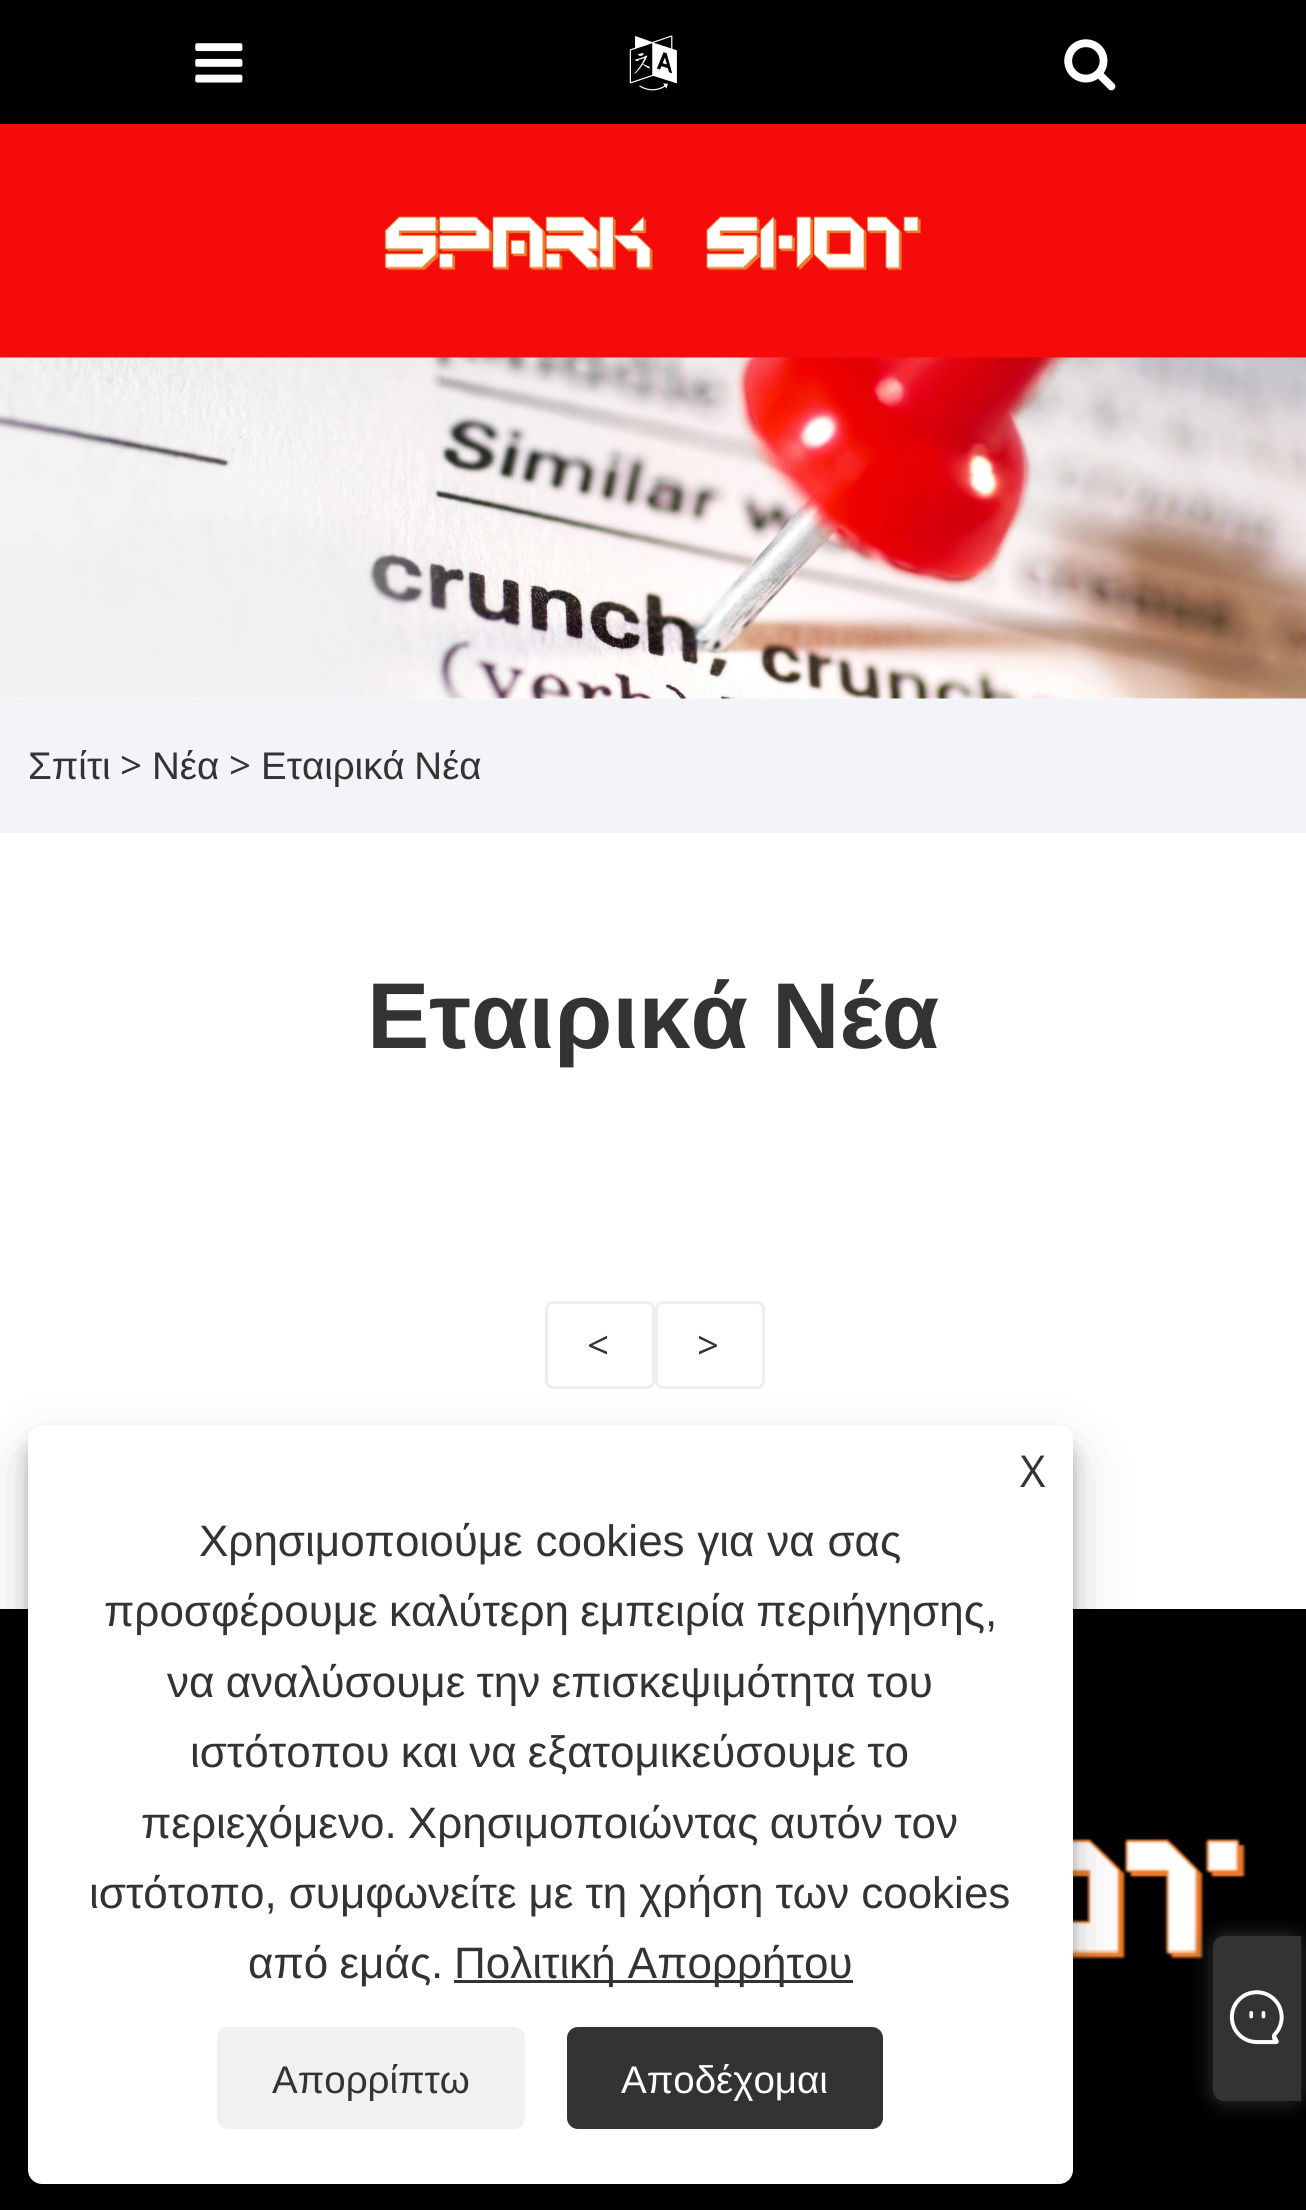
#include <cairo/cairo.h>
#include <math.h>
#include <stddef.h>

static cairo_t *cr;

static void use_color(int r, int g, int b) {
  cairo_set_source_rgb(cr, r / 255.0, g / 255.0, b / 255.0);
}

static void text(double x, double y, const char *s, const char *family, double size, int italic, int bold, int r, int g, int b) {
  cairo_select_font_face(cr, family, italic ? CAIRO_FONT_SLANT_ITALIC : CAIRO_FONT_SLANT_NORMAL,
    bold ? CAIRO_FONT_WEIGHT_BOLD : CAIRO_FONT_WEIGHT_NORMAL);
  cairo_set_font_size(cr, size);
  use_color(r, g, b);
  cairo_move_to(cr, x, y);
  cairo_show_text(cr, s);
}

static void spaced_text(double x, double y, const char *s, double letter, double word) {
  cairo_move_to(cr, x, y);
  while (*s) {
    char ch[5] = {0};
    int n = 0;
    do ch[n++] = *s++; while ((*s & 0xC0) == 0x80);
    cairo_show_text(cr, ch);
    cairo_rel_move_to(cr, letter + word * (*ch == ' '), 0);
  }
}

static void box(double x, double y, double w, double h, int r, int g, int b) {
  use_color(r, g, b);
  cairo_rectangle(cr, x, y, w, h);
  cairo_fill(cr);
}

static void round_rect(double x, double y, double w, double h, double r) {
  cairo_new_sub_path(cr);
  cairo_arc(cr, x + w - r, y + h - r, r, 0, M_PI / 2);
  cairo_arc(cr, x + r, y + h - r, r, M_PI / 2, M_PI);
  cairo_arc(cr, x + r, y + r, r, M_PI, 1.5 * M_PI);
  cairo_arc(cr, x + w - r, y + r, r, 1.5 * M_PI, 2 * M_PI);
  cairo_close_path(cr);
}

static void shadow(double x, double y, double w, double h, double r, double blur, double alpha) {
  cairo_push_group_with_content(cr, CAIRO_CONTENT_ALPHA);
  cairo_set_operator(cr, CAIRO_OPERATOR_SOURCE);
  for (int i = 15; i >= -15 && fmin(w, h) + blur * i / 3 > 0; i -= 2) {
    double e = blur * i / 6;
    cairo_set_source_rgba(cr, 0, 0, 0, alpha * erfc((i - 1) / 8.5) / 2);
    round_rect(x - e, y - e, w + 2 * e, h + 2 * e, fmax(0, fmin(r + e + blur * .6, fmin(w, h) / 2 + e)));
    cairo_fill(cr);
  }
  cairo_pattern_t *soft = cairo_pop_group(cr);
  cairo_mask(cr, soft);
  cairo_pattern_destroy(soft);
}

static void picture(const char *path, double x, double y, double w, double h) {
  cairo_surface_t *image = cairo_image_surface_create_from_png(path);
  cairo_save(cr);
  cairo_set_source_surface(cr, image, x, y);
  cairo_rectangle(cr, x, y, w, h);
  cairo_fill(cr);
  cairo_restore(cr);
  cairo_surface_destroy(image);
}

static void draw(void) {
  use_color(255, 255, 255);
  cairo_paint(cr);
  box(0, 0, 1306, 124, 0, 0, 0);
  picture("img_01.png", 195, 43, 48, 40);
  picture("img_02.png", 629, 35, 48, 56);
  picture("img_03.png", 1064, 39, 52, 52);
  box(0, 124, 1306, 234, 245, 11, 11);
  picture("img_04.png", 384, 216, 537, 55);
  picture("img_05.png", 0, 357, 1306, 342);
  box(0, 699, 1306, 134, 243, 244, 248);
  round_rect(546.5, 1302.5, 107, 85, 6.5);
  use_color(238, 238, 238);
  cairo_set_line_width(cr, 3);
  cairo_stroke(cr);
  round_rect(656.5, 1302.5, 107, 85, 6.5);
  cairo_stroke(cr);
  box(0, 1609, 1306, 601, 0, 0, 0);
  picture("img_06.png", 1073, 1838, 173, 122);
  use_color(0, 0, 0);
  shadow(28, 1441, 1045, 759, 14, 8, 0.23);
  shadow(28, 1452, 1045, 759, 14, 27.5, 0.19);
  use_color(255, 255, 255);
  round_rect(28, 1425, 1045, 759, 14);
  cairo_fill(cr);
  box(454, 1980, 399, 3, 51, 51, 51);
  use_color(241, 241, 241);
  round_rect(217, 2027, 308, 102, 11);
  cairo_fill(cr);
  use_color(51, 51, 51);
  round_rect(567, 2027, 316, 102, 11);
  cairo_fill(cr);
  use_color(51, 51, 51);
  shadow(1213, 1936, 88, 165, 11, 11, 1);
  use_color(51, 51, 51);
  cairo_new_path(cr);
  cairo_move_to(cr, 1224, 1936);
  cairo_line_to(cr, 1301, 1936);
  cairo_line_to(cr, 1301, 2101);
  cairo_line_to(cr, 1224, 2101);
  cairo_curve_to(cr, 1218, 2101, 1213, 2096, 1213, 2090);
  cairo_line_to(cr, 1213, 1947);
  cairo_curve_to(cr, 1213, 1941, 1218, 1936, 1224, 1936);
  cairo_close_path(cr);
  cairo_fill(cr);
  picture("img_07.png", 1229, 1990, 55, 55);
  text(28, 779, "Σπίτι", "Liberation Sans", 38.5, 0, 0, 51, 51, 51);
  text(120, 779, ">", "Open Sans", 38.5, 0, 0, 51, 51, 51);
  text(152, 779, "Νέα", "Liberation Sans", 38.5, 0, 0, 51, 51, 51);
  text(229, 779, ">", "Open Sans", 38.5, 0, 0, 51, 51, 51);
  cairo_select_font_face(cr, "Liberation Sans", CAIRO_FONT_SLANT_NORMAL, CAIRO_FONT_WEIGHT_NORMAL);
  spaced_text(261, 779, "Εταιρικά Νέα", 0, -1);
  cairo_select_font_face(cr, "Liberation Sans", CAIRO_FONT_SLANT_NORMAL, CAIRO_FONT_WEIGHT_BOLD);
  cairo_set_font_size(cr, 93.5);
  spaced_text(367, 1048, "Εταιρικά Νέα", 0, -2);
  text(587, 1359, "<", "Open Sans", 38.5, 0, 0, 51, 51, 51);
  text(697, 1359, ">", "Open Sans", 38.5, 0, 0, 51, 51, 51);
  text(1020, 1487, "X", "Open Sans", 44, 0, 0, 51, 51, 51);
  cairo_select_font_face(cr, "Liberation Sans", CAIRO_FONT_SLANT_NORMAL, CAIRO_FONT_WEIGHT_NORMAL);
  spaced_text(199, 1556, "Χρησιμοποιούμε cookies για να σας", 0, 0.5);
  spaced_text(104, 1626, "προσφέρουμε καλύτερη εμπειρία περιήγησης,", 0, -1);
  spaced_text(167, 1697, "να αναλύσουμε την επισκεψιμότητα του", 0, -1);
  spaced_text(190, 1767, "ιστότοπου και να εξατομικεύσουμε το", 0, -1);
  spaced_text(141, 1838, "περιεχόμενο. Χρησιμοποιώντας αυτόν τον", 0, -1);
  spaced_text(89, 1908, "ιστότοπο, συμφωνείτε με τη χρήση των cookies", 0, -0.25);
  spaced_text(248, 1978, "από εμάς.", 0, -1);
  text(454, 1978, "Πολιτική Απορρήτου", "Liberation Sans", 44, 0, 0, 51, 51, 51);
  text(272, 2093, "Απορρίπτω", "Liberation Sans", 38.5, 0, 0, 51, 51, 51);
  text(621, 2093, "Αποδέχομαι", "Liberation Sans", 38.5, 0, 0, 255, 255, 255);
}

int main(void) {
  cairo_surface_t *surface = cairo_image_surface_create(CAIRO_FORMAT_RGB24, 1306, 2210);
  cr = cairo_create(surface);
  cairo_font_options_t *options = cairo_font_options_create();
  cairo_font_options_set_hint_metrics(options, CAIRO_HINT_METRICS_OFF);
  cairo_font_options_set_hint_style(options, CAIRO_HINT_STYLE_NONE);
  cairo_set_font_options(cr, options);
  cairo_set_miter_limit(cr, 4);
  draw();
  cairo_surface_write_to_png(surface, "out.png");
  cairo_font_options_destroy(options);
  cairo_destroy(cr);
  cairo_surface_destroy(surface);
  return 0;
}
